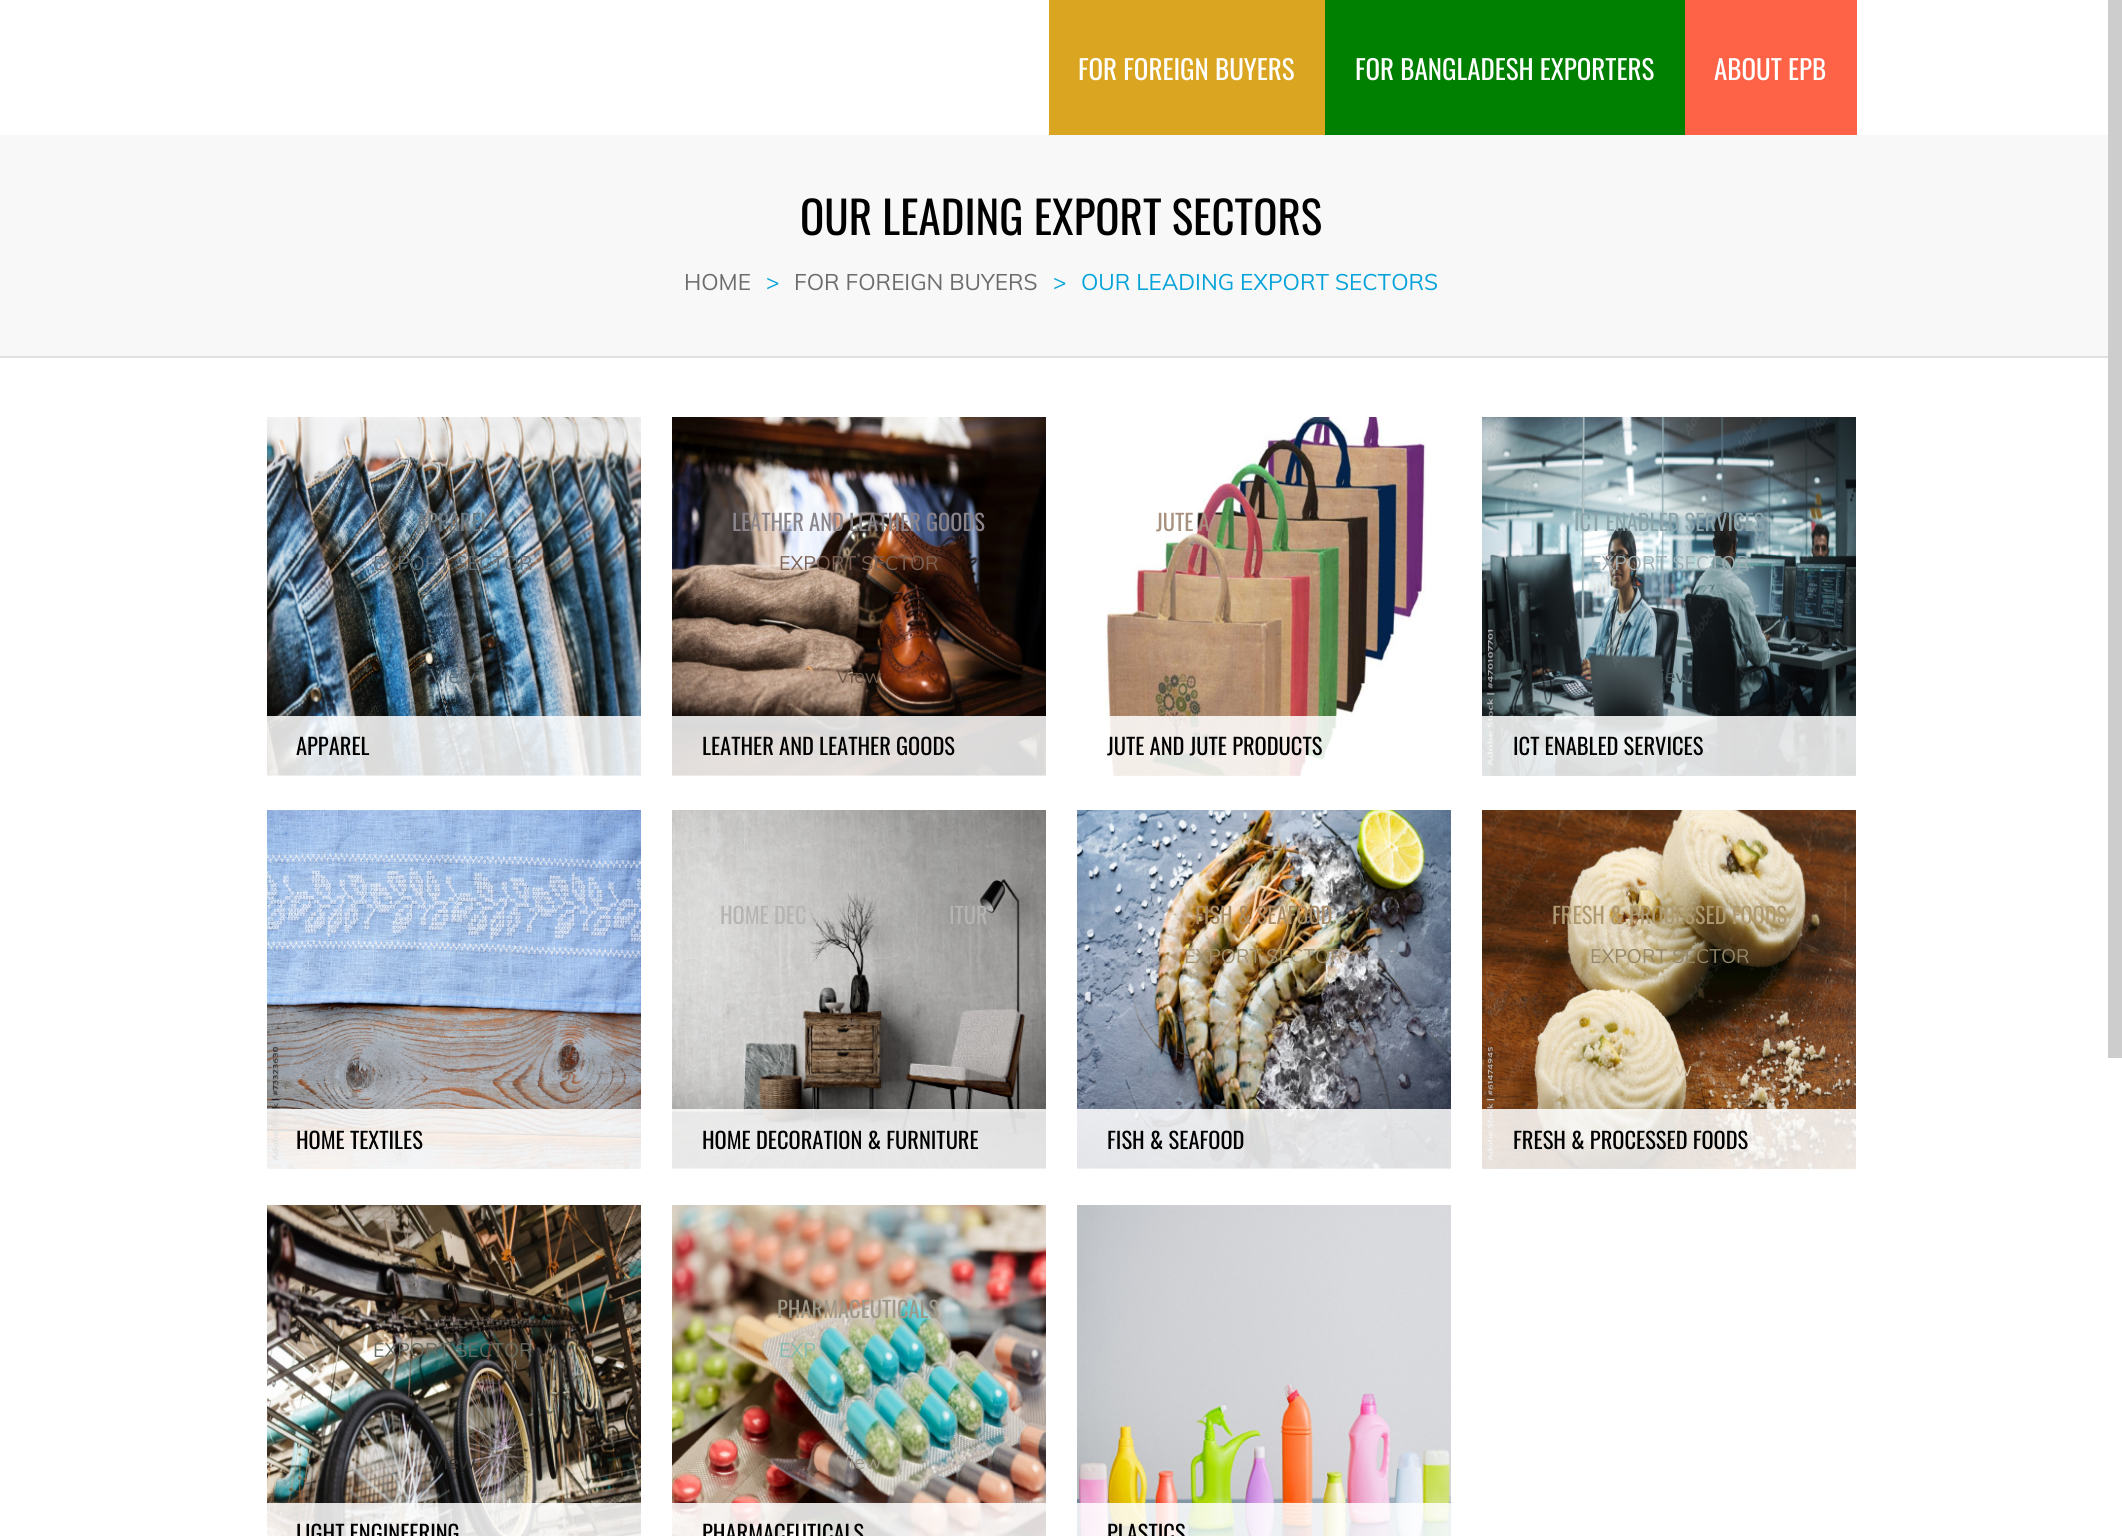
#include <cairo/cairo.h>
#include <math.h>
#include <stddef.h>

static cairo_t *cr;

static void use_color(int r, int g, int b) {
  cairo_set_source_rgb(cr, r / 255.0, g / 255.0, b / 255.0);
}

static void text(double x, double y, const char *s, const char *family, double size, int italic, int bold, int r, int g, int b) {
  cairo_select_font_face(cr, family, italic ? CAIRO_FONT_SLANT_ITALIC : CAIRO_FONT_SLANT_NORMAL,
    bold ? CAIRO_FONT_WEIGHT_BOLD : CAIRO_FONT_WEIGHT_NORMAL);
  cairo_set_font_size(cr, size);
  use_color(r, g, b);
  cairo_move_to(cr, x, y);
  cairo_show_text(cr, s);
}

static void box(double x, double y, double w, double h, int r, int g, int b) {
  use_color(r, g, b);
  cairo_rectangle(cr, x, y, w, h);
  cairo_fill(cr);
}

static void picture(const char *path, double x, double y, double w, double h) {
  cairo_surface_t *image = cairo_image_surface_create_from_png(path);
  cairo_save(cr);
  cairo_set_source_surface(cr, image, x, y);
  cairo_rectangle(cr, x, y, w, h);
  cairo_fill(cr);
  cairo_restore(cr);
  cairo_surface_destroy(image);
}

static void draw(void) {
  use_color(255, 255, 255);
  cairo_paint(cr);
  box(1049, 0, 276, 135, 218, 165, 32);
  box(1325, 0, 360, 135, 0, 128, 0);
  box(1685, 0, 172, 135, 255, 99, 71);
  box(0, 135, 2108, 221, 248, 248, 248);
  box(0, 356, 2108, 2, 224, 224, 224);
  picture("img_01.png", 267, 417, 374, 359);
  cairo_set_source_rgba(cr, 1, 1, 1, 0.85);
  cairo_rectangle(cr, 267, 716, 374, 60);
  cairo_fill(cr);
  picture("img_02.png", 672, 417, 374, 359);
  cairo_rectangle(cr, 672, 716, 374, 60);
  cairo_fill(cr);
  picture("img_03.png", 1105, 417, 321, 359);
  cairo_rectangle(cr, 1105, 716, 233, 60);
  cairo_fill(cr);
  picture("img_04.png", 1482, 417, 374, 359);
  cairo_rectangle(cr, 1482, 716, 374, 60);
  cairo_fill(cr);
  picture("img_05.png", 267, 810, 374, 359);
  cairo_rectangle(cr, 267, 1109, 374, 60);
  cairo_fill(cr);
  picture("img_06.png", 672, 810, 374, 359);
  cairo_rectangle(cr, 672, 1109, 374, 60);
  cairo_fill(cr);
  picture("img_07.png", 1077, 810, 374, 359);
  cairo_rectangle(cr, 1077, 1109, 374, 60);
  cairo_fill(cr);
  picture("img_08.png", 1482, 810, 374, 359);
  cairo_rectangle(cr, 1482, 1109, 374, 60);
  cairo_fill(cr);
  picture("img_09.png", 267, 1205, 374, 331);
  cairo_rectangle(cr, 267, 1503, 374, 33);
  cairo_fill(cr);
  picture("img_10.png", 672, 1205, 374, 331);
  cairo_rectangle(cr, 672, 1503, 374, 33);
  cairo_fill(cr);
  picture("img_11.png", 1077, 1205, 374, 331);
  cairo_rectangle(cr, 1077, 1503, 374, 33);
  cairo_fill(cr);
  box(2108, 0, 14, 1058, 205, 205, 205);
  text(1078, 80, "FOR FOREIGN BUYERS", "Oswald", 27, 0, 0, 255, 255, 255);
  text(1355, 80, "FOR BANGLADESH EXPORTERS", "Oswald", 27, 0, 0, 255, 255, 255);
  text(1714, 80, "ABOUT EPB", "Oswald", 27, 0, 0, 255, 255, 255);
  text(800, 235, "OUR LEADING EXPORT SECTORS", "Oswald", 45, 0, 0, 0, 0, 0);
  text(684, 290, "HOME", "Muli", 22.5, 0, 0, 108, 108, 108);
  text(766, 290, ">", "Muli", 22.5, 0, 0, 5, 163, 217);
  text(794, 290, "FOR FOREIGN BUYERS", "Muli", 22.5, 0, 0, 108, 108, 108);
  text(1053, 290, ">", "Muli", 22.5, 0, 0, 5, 163, 217);
  text(1081, 290, "OUR LEADING EXPORT SECTORS", "Muli", 22.5, 0, 0, 5, 163, 217);
  text(416, 531, "APPAREL", "Oswald", 22.5, 0, 0, 108, 122, 131);
  text(373, 570, "EXPORT SECTOR", "Muli", 19.5, 0, 0, 97, 111, 121);
  text(430, 683, "View", "Muli", 19.5, 0, 0, 97, 111, 121);
  text(296, 755, "APPAREL", "Oswald", 22.5, 0, 0, 0, 0, 0);
  text(732, 531, "LEATHER AND LEATHER GOODS", "Oswald", 22.5, 0, 0, 139, 134, 139);
  text(779, 570, "EXPORT SECTOR", "Muli", 19.5, 0, 0, 125, 98, 84);
  text(836, 683, "View", "Muli", 19.5, 0, 0, 111, 89, 74);
  text(702, 755, "LEATHER AND LEATHER GOODS", "Oswald", 22.5, 0, 0, 0, 0, 0);
  text(1156, 531, "JUTE A", "Oswald", 22.5, 0, 0, 167, 144, 125);
  text(1107, 755, "JUTE AND JUTE PRODUCTS", "Oswald", 22.5, 0, 0, 0, 0, 0);
  text(1574, 531, "ICT ENABLED SERVICES", "Oswald", 22.5, 0, 0, 141, 164, 171);
  text(1590, 570, "EXPORT SECTOR", "Muli", 19.5, 0, 0, 158, 172, 175);
  text(1660, 683, "iew", "Muli", 19.5, 0, 0, 72, 87, 93);
  text(1513, 755, "ICT ENABLED SERVICES", "Oswald", 22.5, 0, 0, 0, 0, 0);
  text(296, 1149, "HOME TEXTILES", "Oswald", 22.5, 0, 0, 0, 0, 0);
  text(720, 924, "HOME DEC", "Oswald", 22.5, 0, 0, 181, 180, 178);
  text(949, 924, "ITUR", "Oswald", 22.5, 0, 0, 181, 180, 178);
  text(702, 1149, "HOME DECORATION & FURNITURE", "Oswald", 22.5, 0, 0, 0, 0, 0);
  text(1195, 924, "FISH & SEAFOOD", "Oswald", 22.5, 0, 0, 171, 142, 104);
  text(1184, 963, "EXPORT SECTOR", "Muli", 19.5, 0, 0, 161, 143, 109);
  text(1107, 1149, "FISH & SEAFOOD", "Oswald", 22.5, 0, 0, 0, 0, 0);
  text(1552, 924, "FRESH & PROCESSED FOODS", "Oswald", 22.5, 0, 0, 175, 153, 112);
  text(1590, 963, "EXPORT SECTOR", "Muli", 19.5, 0, 0, 148, 135, 104);
  text(1675, 1076, "w", "Muli", 19.5, 0, 0, 211, 193, 164);
  text(1513, 1149, "FRESH & PROCESSED FOODS", "Oswald", 22.5, 0, 0, 0, 0, 0);
  text(373, 1357, "EXPORT SECTOR", "Muli", 19.5, 0, 0, 102, 109, 99);
  text(430, 1469, "View", "Muli", 19.5, 0, 0, 49, 47, 47);
  text(296, 1542, "LIGHT ENGINEERING", "Oswald", 22.5, 0, 0, 0, 0, 0);
  text(777, 1318, "PHARMACEUTICALS", "Oswald", 22.5, 0, 0, 158, 152, 137);
  text(779, 1357, "EXP", "Muli", 19.5, 0, 0, 129, 188, 178);
  text(836, 1469, "View", "Muli", 19.5, 0, 0, 158, 152, 137);
  text(702, 1542, "PHARMACEUTICALS", "Oswald", 22.5, 0, 0, 0, 0, 0);
  text(1107, 1542, "PLASTICS", "Oswald", 22.5, 0, 0, 0, 0, 0);
}

int main(void) {
  cairo_surface_t *surface = cairo_image_surface_create(CAIRO_FORMAT_RGB24, 2122, 1536);
  cr = cairo_create(surface);
  cairo_font_options_t *options = cairo_font_options_create();
  cairo_font_options_set_hint_metrics(options, CAIRO_HINT_METRICS_OFF);
  cairo_font_options_set_hint_style(options, CAIRO_HINT_STYLE_NONE);
  cairo_set_font_options(cr, options);
  cairo_set_miter_limit(cr, 4);
  draw();
  cairo_surface_write_to_png(surface, "out.png");
  cairo_font_options_destroy(options);
  cairo_destroy(cr);
  cairo_surface_destroy(surface);
  return 0;
}
